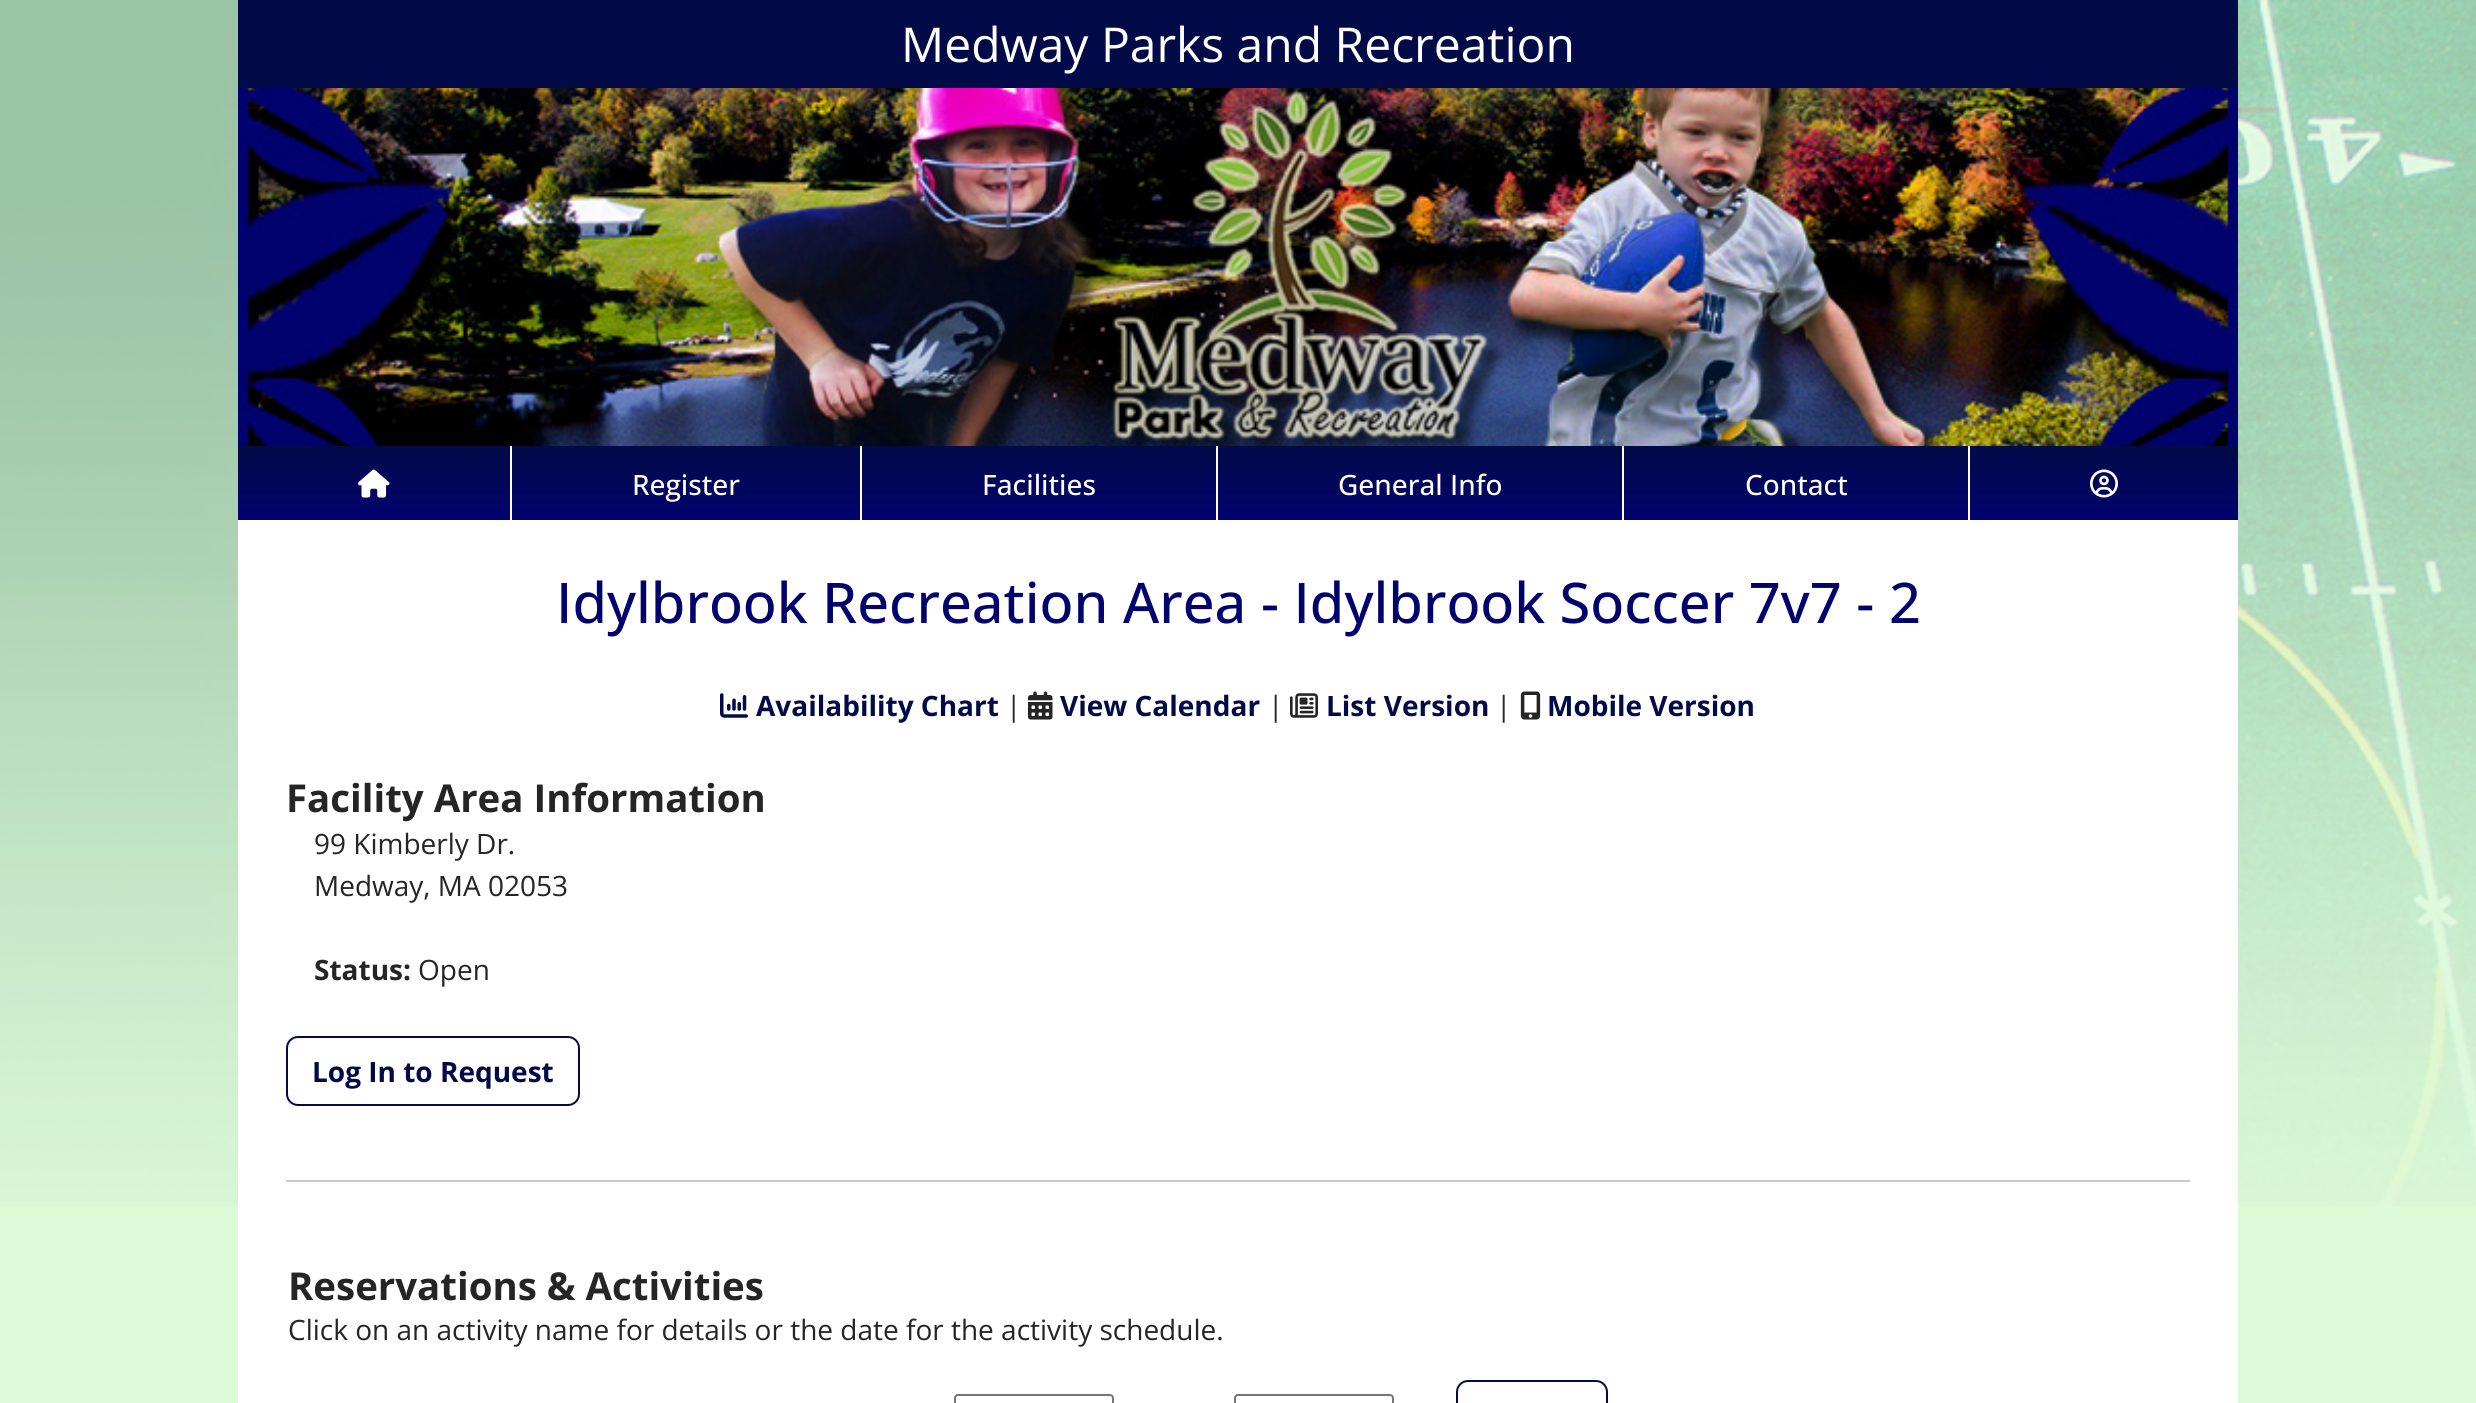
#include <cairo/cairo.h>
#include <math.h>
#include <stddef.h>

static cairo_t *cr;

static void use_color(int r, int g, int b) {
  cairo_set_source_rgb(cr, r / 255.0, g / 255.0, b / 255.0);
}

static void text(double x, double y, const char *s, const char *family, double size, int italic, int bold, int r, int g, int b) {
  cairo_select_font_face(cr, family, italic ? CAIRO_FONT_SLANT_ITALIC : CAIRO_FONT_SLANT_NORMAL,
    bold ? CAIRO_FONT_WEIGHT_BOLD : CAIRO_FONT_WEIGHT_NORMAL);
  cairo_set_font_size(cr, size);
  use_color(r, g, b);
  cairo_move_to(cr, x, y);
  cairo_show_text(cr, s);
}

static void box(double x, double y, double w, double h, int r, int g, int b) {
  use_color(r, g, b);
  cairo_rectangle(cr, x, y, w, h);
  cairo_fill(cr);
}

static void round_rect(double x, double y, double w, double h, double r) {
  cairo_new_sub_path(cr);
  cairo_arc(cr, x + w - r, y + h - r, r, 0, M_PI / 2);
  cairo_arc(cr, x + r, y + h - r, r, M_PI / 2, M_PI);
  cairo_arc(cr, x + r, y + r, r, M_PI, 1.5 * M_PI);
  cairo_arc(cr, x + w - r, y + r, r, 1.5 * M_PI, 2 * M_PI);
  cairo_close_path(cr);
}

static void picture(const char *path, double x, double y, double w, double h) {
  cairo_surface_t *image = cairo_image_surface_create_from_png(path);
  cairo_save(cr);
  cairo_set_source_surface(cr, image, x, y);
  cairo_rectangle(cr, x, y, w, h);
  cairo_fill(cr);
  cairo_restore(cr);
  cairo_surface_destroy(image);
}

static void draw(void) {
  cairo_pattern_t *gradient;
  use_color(221, 250, 217);
  cairo_paint(cr);
  picture("img_01.png", 0, 0, 2476, 1206);
  box(238, 520, 2000, 883, 255, 255, 255);
  box(238, 0, 2000, 88, 2, 11, 71);
  picture("img_02.png", 238, 88, 2000, 358);
  gradient = cairo_pattern_create_linear(1238, 446, 1238, 520);
  cairo_pattern_add_color_stop_rgba(gradient, 0, 0.008, 0.043, 0.278, 1);
  cairo_pattern_add_color_stop_rgba(gradient, 1, 0.008, 0.008, 0.431, 1);
  cairo_set_source(cr, gradient);
  cairo_pattern_destroy(gradient);
  cairo_rectangle(cr, 238, 446, 2000, 74);
  cairo_fill(cr);
  box(510, 446, 2, 74, 255, 255, 255);
  picture("img_03.png", 358, 469, 32, 29);
  box(860, 446, 2, 74, 255, 255, 255);
  box(1216, 446, 2, 74, 255, 255, 255);
  box(1622, 446, 2, 74, 255, 255, 255);
  box(1968, 446, 2, 74, 255, 255, 255);
  picture("img_04.png", 2090, 469, 28, 29);
  picture("img_05.png", 720, 693, 28, 25);
  picture("img_06.png", 1028, 691, 25, 29);
  picture("img_07.png", 1290, 693, 28, 25);
  picture("img_08.png", 1520, 691, 21, 29);
  round_rect(287, 1037, 292, 68, 11);
  use_color(2, 11, 71);
  cairo_stroke(cr);
  box(286, 1180, 1904, 2, 201, 201, 201);
  round_rect(955, 1395, 158, 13, 3);
  use_color(118, 118, 118);
  cairo_stroke(cr);
  round_rect(1235, 1395, 158, 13, 3);
  cairo_stroke(cr);
  round_rect(1457, 1381, 150, 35, 11);
  use_color(2, 11, 71);
  cairo_stroke(cr);
  text(901, 62, "Medway Parks and Recreation", "Open Sans", 48, 0, 0, 255, 255, 255);
  text(632, 495, "Register", "Open Sans Medium", 28, 0, 0, 255, 255, 255);
  text(982, 495, "Facilities", "Open Sans Medium", 28, 0, 0, 255, 255, 255);
  text(1338, 495, "General Info", "Open Sans Medium", 28, 0, 0, 255, 255, 255);
  text(1745, 495, "Contact", "Open Sans Medium", 28, 0, 0, 255, 255, 255);
  text(556, 623, "Idylbrook Recreation Area - Idylbrook Soccer 7v7 - 2", "Open Sans Medium", 56, 0, 0, 2, 2, 110);
  text(756, 716, "Availability Chart", "Open Sans", 28, 0, 1, 2, 11, 71);
  text(1006, 716, "|", "Open Sans", 28, 0, 0, 37, 37, 37);
  text(1060, 716, "View Calendar", "Open Sans", 28, 0, 1, 2, 11, 71);
  text(1268, 716, "|", "Open Sans", 28, 0, 0, 37, 37, 37);
  text(1326, 716, "List Version", "Open Sans", 28, 0, 1, 2, 11, 71);
  text(1496, 716, "|", "Open Sans", 28, 0, 0, 37, 37, 37);
  text(1547, 716, "Mobile Version", "Open Sans", 28, 0, 1, 2, 11, 71);
  text(286, 812, "Facility Area Information", "Open Sans", 38.4, 0, 1, 37, 37, 37);
  text(314, 854, "99 Kimberly Dr.", "Open Sans", 28, 0, 0, 37, 37, 37);
  text(314, 896, "Medway, MA 02053", "Open Sans", 28, 0, 0, 37, 37, 37);
  text(314, 980, "Status:", "Open Sans", 28, 0, 1, 37, 37, 37);
  text(418, 980, "Open", "Open Sans", 28, 0, 0, 37, 37, 37);
  text(312, 1082, "Log In to Request", "Open Sans", 28, 0, 1, 2, 11, 71);
  text(288, 1300, "Reservations & Activities", "Open Sans", 38.4, 0, 1, 37, 37, 37);
  text(288, 1340, "Click on an activity name for details or the date for the activity schedule.", "Open Sans", 28, 0, 0, 37, 37, 37);
}

int main(void) {
  cairo_surface_t *surface = cairo_image_surface_create(CAIRO_FORMAT_RGB24, 2476, 1403);
  cr = cairo_create(surface);
  cairo_font_options_t *options = cairo_font_options_create();
  cairo_font_options_set_hint_metrics(options, CAIRO_HINT_METRICS_OFF);
  cairo_font_options_set_hint_style(options, CAIRO_HINT_STYLE_NONE);
  cairo_set_font_options(cr, options);
  cairo_set_miter_limit(cr, 4);
  draw();
  cairo_surface_write_to_png(surface, "out.png");
  cairo_font_options_destroy(options);
  cairo_destroy(cr);
  cairo_surface_destroy(surface);
  return 0;
}
